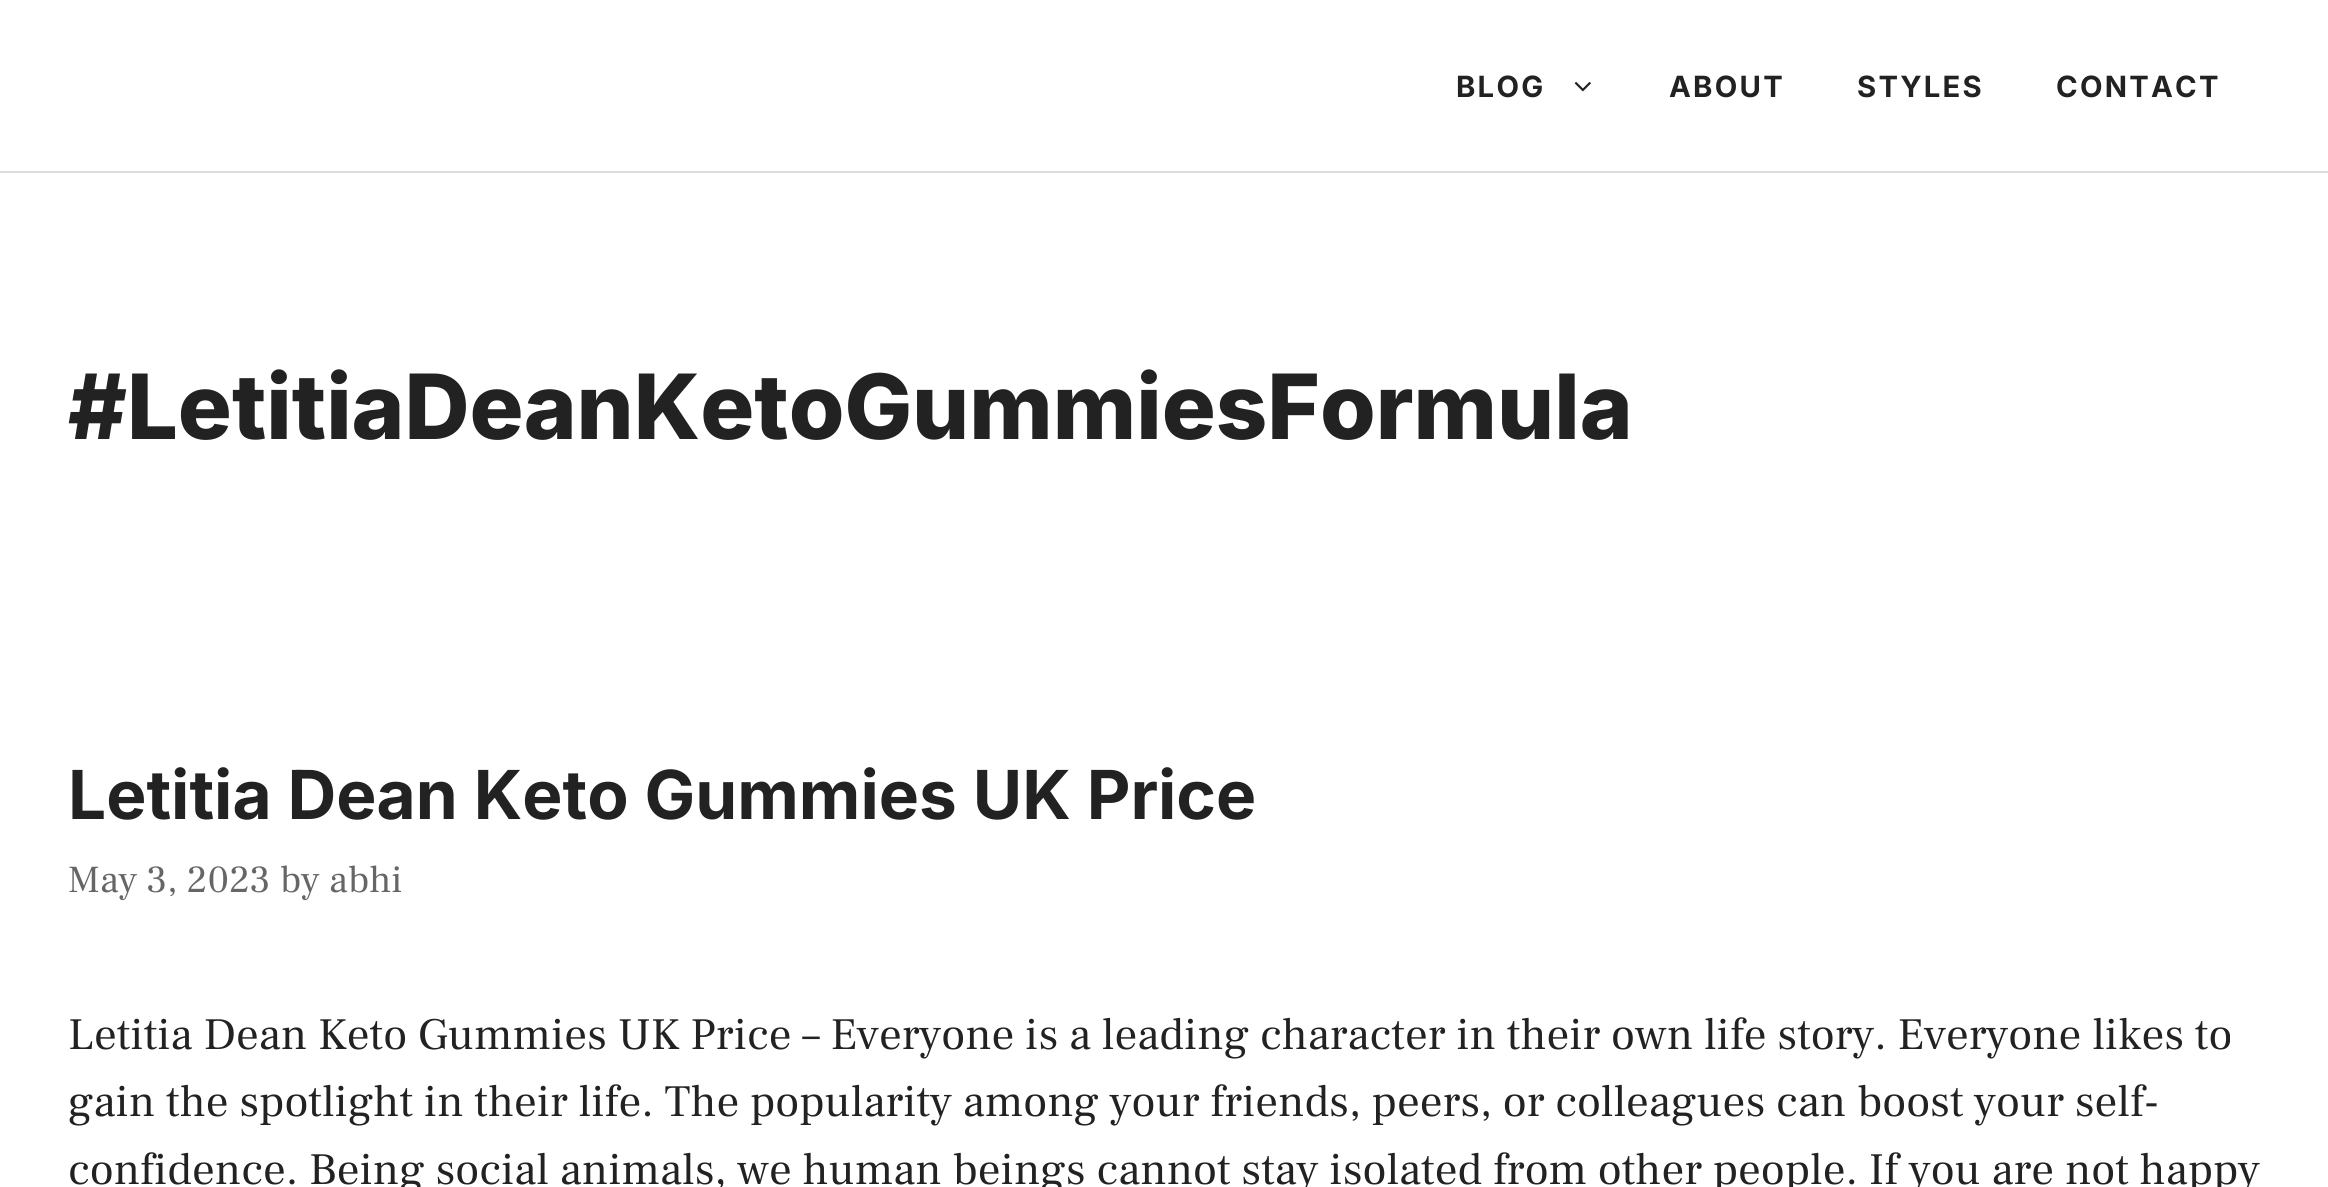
#include <cairo/cairo.h>
#include <math.h>
#include <stddef.h>

static cairo_t *cr;

static void use_color(int r, int g, int b) {
  cairo_set_source_rgb(cr, r / 255.0, g / 255.0, b / 255.0);
}

static void text(double x, double y, const char *s, const char *family, double size, int italic, int bold, int r, int g, int b) {
  cairo_select_font_face(cr, family, italic ? CAIRO_FONT_SLANT_ITALIC : CAIRO_FONT_SLANT_NORMAL,
    bold ? CAIRO_FONT_WEIGHT_BOLD : CAIRO_FONT_WEIGHT_NORMAL);
  cairo_set_font_size(cr, size);
  use_color(r, g, b);
  cairo_move_to(cr, x, y);
  cairo_show_text(cr, s);
}

static void spaced_text(double x, double y, const char *s, double letter, double word) {
  cairo_move_to(cr, x, y);
  while (*s) {
    char ch[5] = {0};
    int n = 0;
    do ch[n++] = *s++; while ((*s & 0xC0) == 0x80);
    cairo_show_text(cr, ch);
    cairo_rel_move_to(cr, letter + word * (*ch == ' '), 0);
  }
}

static void box(double x, double y, double w, double h, int r, int g, int b) {
  use_color(r, g, b);
  cairo_rectangle(cr, x, y, w, h);
  cairo_fill(cr);
}

static void picture(const char *path, double x, double y, double w, double h) {
  cairo_surface_t *image = cairo_image_surface_create_from_png(path);
  cairo_save(cr);
  cairo_set_source_surface(cr, image, x, y);
  cairo_rectangle(cr, x, y, w, h);
  cairo_fill(cr);
  cairo_restore(cr);
  cairo_surface_destroy(image);
}

static void draw(void) {
  use_color(255, 255, 255);
  cairo_paint(cr);
  box(0, 171, 2328, 2, 221, 221, 221);
  picture("img_01.png", 1574, 82, 17, 10);
  cairo_select_font_face(cr, "Inter", CAIRO_FONT_SLANT_NORMAL, CAIRO_FONT_WEIGHT_BOLD);
  cairo_set_font_size(cr, 29.25);
  use_color(34, 34, 34);
  spaced_text(1456, 97, "BLOG", 2.25, 0);
  spaced_text(1669, 97, "ABOUT", 2.25, 0);
  spaced_text(1857, 97, "STYLES", 2.25, 0);
  spaced_text(2056, 97, "CONTACT", 2.25, 0);
  text(68, 439, "#LetitiaDeanKetoGummiesFormula", "Inter ExtraBold", 90, 0, 0, 34, 34, 34);
  text(68, 819, "Letitia Dean Keto Gummies UK Price", "Inter", 67.5, 0, 1, 34, 34, 34);
  text(68, 892, "May 3, 2023 by abhi", "Frank Ruhl Libre", 38.25, 0, 0, 102, 102, 102);
  text(68, 1049, "Letitia Dean Keto Gummies UK Price – Everyone is a leading character in their own life story. Everyone likes to", "Frank Ruhl Libre", 45, 0, 0, 34, 34, 34);
  text(68, 1116, "gain the spotlight in their life. The popularity among your friends, peers, or colleagues can boost your self-", "Frank Ruhl Libre", 45, 0, 0, 34, 34, 34);
  text(68, 1184, "confidence. Being social animals, we human beings cannot stay isolated from other people. If you are not happy", "Frank Ruhl Libre", 45, 0, 0, 34, 34, 34);
}

int main(void) {
  cairo_surface_t *surface = cairo_image_surface_create(CAIRO_FORMAT_RGB24, 2328, 1187);
  cr = cairo_create(surface);
  cairo_font_options_t *options = cairo_font_options_create();
  cairo_font_options_set_hint_metrics(options, CAIRO_HINT_METRICS_OFF);
  cairo_font_options_set_hint_style(options, CAIRO_HINT_STYLE_NONE);
  cairo_set_font_options(cr, options);
  cairo_set_miter_limit(cr, 4);
  draw();
  cairo_surface_write_to_png(surface, "out.png");
  cairo_font_options_destroy(options);
  cairo_destroy(cr);
  cairo_surface_destroy(surface);
  return 0;
}
